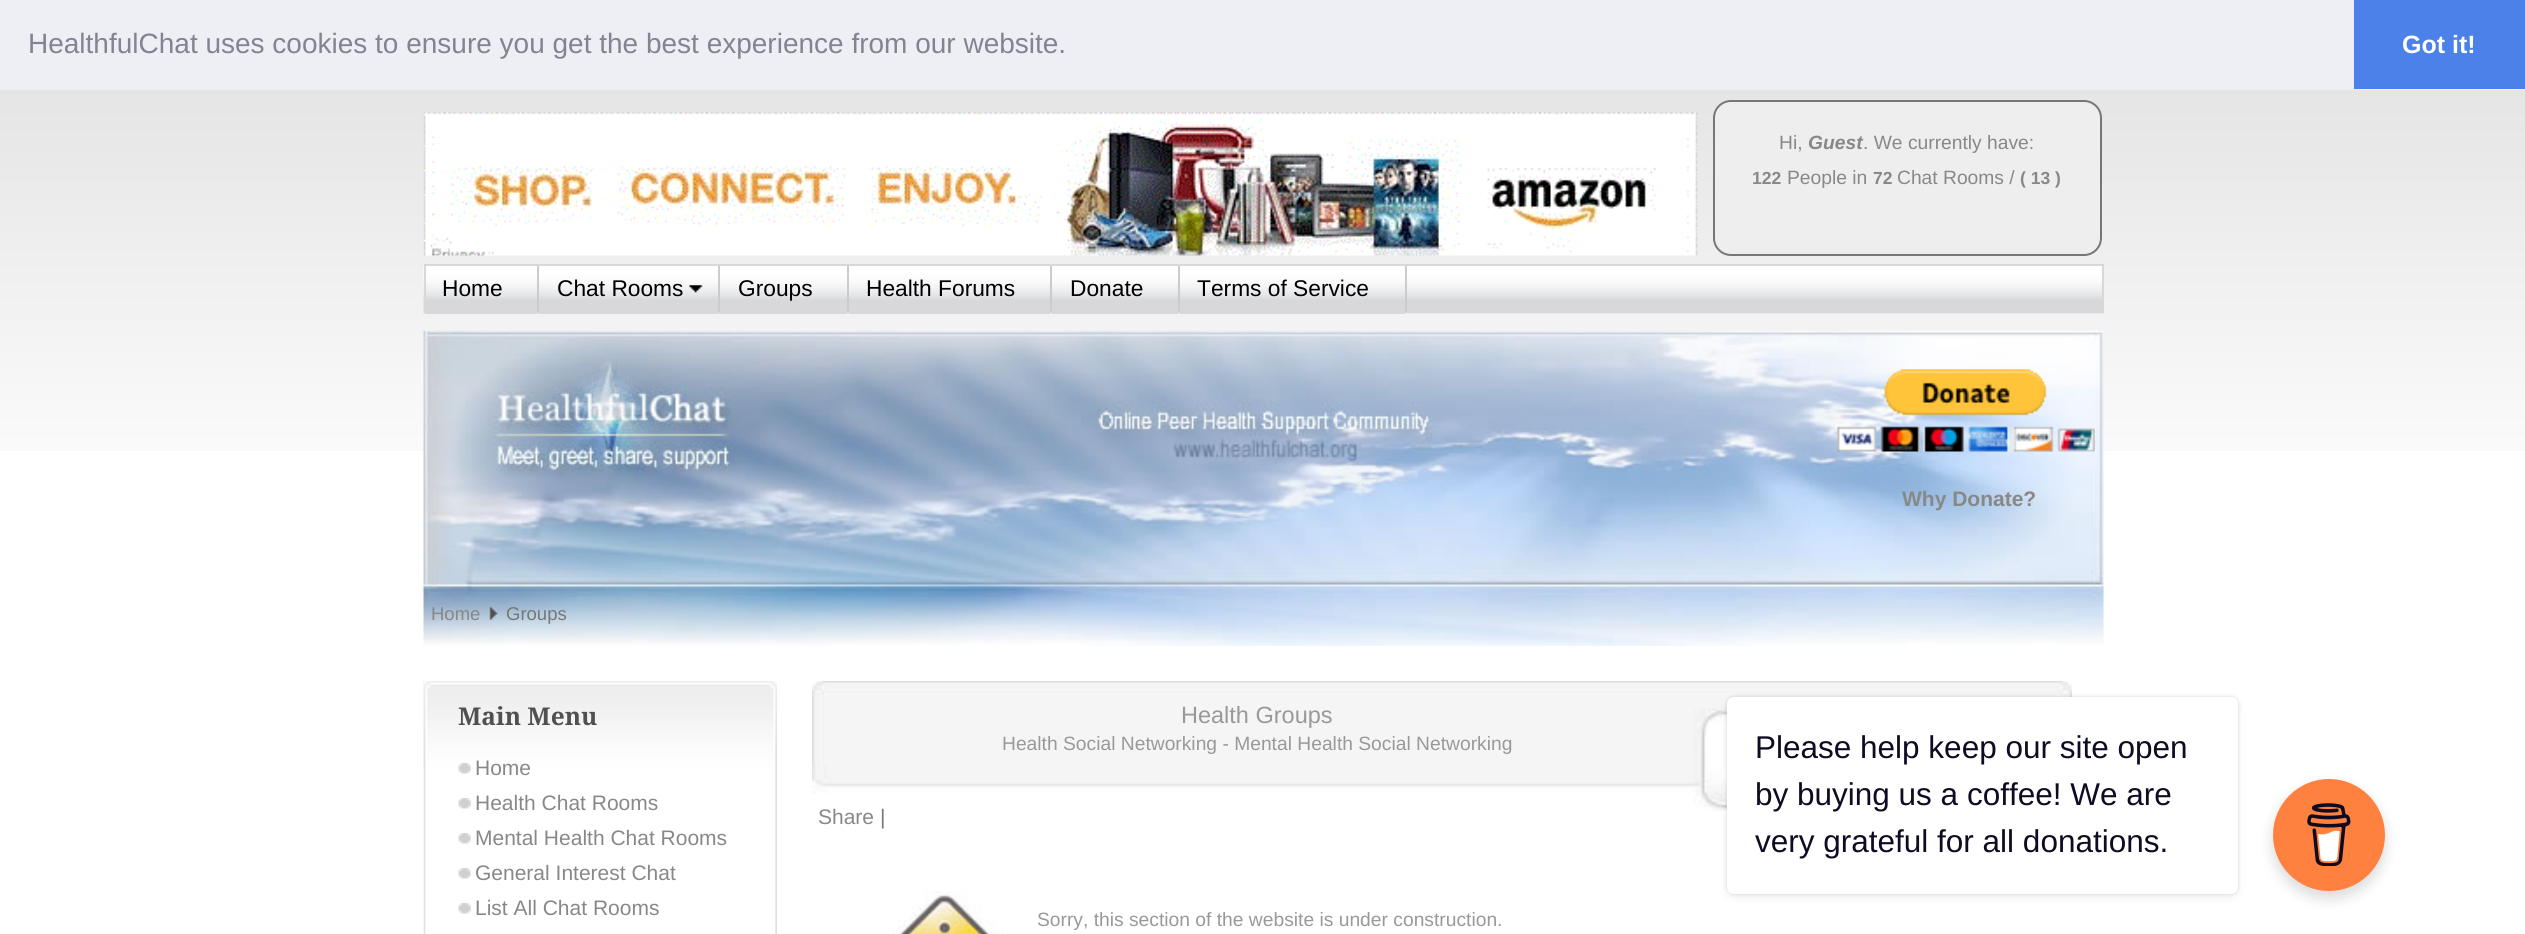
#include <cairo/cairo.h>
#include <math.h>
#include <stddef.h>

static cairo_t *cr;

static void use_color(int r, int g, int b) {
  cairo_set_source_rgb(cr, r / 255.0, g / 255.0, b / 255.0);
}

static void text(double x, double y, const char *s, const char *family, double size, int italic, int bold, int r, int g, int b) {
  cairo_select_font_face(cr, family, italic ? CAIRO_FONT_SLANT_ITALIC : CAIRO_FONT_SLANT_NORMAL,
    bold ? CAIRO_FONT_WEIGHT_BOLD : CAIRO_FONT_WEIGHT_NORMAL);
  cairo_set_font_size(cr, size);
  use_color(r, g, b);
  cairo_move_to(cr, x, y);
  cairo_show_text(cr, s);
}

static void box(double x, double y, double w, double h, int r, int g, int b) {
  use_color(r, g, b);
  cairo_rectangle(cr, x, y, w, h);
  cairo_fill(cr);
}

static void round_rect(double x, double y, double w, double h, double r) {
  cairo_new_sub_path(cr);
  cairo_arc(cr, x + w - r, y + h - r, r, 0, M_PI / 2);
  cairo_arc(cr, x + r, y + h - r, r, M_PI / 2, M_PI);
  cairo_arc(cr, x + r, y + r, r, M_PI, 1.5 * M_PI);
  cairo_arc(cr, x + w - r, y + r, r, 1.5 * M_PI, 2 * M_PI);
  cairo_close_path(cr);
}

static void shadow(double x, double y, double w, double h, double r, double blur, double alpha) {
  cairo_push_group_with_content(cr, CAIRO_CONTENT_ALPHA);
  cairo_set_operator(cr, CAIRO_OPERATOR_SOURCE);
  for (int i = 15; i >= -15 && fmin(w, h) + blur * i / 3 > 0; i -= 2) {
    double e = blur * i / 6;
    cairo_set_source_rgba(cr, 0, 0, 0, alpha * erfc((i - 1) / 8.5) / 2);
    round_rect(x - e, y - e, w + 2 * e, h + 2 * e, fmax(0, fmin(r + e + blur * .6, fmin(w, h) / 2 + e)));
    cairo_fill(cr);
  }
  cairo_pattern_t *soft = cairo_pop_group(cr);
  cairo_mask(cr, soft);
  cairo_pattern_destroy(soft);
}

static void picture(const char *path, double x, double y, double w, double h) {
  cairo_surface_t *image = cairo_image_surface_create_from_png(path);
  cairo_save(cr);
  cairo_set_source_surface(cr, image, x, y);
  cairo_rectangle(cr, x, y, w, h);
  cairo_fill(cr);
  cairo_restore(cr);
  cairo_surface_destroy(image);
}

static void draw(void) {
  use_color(255, 255, 255);
  cairo_paint(cr);
  picture("img_01.png", 0, 89, 2525, 362);
  box(0, 0, 2354, 89, 237, 239, 245);
  box(2354, 0, 171, 89, 75, 129, 232);
  picture("img_02.png", 423, 112, 1275, 144);
  use_color(238, 238, 238);
  round_rect(1714, 101, 387, 154, 17);
  cairo_fill_preserve(cr);
  use_color(119, 119, 119);
  cairo_stroke(cr);
  picture("img_03.png", 423, 266, 1681, 48);
  cairo_rectangle(cr, 425, 265, 1678, 47);
  use_color(216, 216, 218);
  cairo_stroke(cr);
  box(537, 266, 2, 46, 204, 204, 204);
  box(425, 313, 112, 1, 216, 216, 218);
  box(718, 266, 2, 46, 204, 204, 204);
  picture("img_04.png", 689, 285, 14, 8);
  box(539, 313, 179, 1, 216, 216, 218);
  box(847, 266, 2, 46, 204, 204, 204);
  box(719, 313, 128, 1, 216, 216, 218);
  box(1050, 266, 2, 46, 204, 204, 204);
  box(849, 313, 201, 1, 216, 216, 218);
  box(1178, 266, 2, 46, 204, 204, 204);
  box(1052, 313, 126, 1, 216, 216, 218);
  box(1405, 266, 2, 46, 204, 204, 204);
  box(1180, 313, 225, 1, 216, 216, 218);
  picture("img_05.png", 423, 330, 1681, 316);
  picture("img_06.png", 1837, 369, 258, 83);
  picture("img_07.png", 489, 606, 9, 14);
  picture("img_08.png", 423, 681, 354, 253);
  picture("img_09.png", 423, 681, 354, 89);
  picture("img_10.png", 458, 763, 13, 11);
  picture("img_11.png", 458, 798, 13, 11);
  picture("img_11.png", 458, 833, 13, 11);
  picture("img_11.png", 458, 868, 13, 11);
  picture("img_11.png", 458, 903, 13, 11);
  picture("img_12.png", 812, 681, 1260, 131);
  picture("img_13.png", 892, 891, 112, 43);
  use_color(0, 0, 0);
  shadow(1727, 697, 511, 197, 7, 2, 0.15);
  shadow(1727, 700, 511, 198, 7, 4.5, 0.05);
  use_color(255, 255, 255);
  round_rect(1727, 697, 511, 197, 7);
  cairo_fill(cr);
  use_color(0, 0, 0);
  shadow(2273, 786, 112, 112, 56, 7, 0.15);
  use_color(255, 129, 63);
  cairo_arc(cr, 2329, 835, 56, 0, 2 * M_PI);
  cairo_fill(cr);
  picture("img_14.png", 2307, 803, 44, 63);
  text(28, 53, "HealthfulChat uses cookies to ensure you get the best experience from our website.", "Liberation Sans", 28, 0, 0, 131, 131, 145);
  text(2402, 53, "Got it!", "Liberation Sans", 25, 0, 1, 255, 255, 255);
  text(1779, 149, "Hi,", "Liberation Sans", 19.25, 0, 0, 136, 136, 136);
  text(1808, 149, "Guest", "Liberation Sans", 19.25, 1, 1, 136, 136, 136);
  text(1863, 149, ". We currently have:", "Liberation Sans", 19.25, 0, 0, 136, 136, 136);
  text(1752, 184, "122", "Liberation Sans", 17.5, 0, 1, 136, 136, 136);
  text(1787, 184, "People in", "Liberation Sans", 19.25, 0, 0, 136, 136, 136);
  text(1873, 184, "72", "Liberation Sans", 17.5, 0, 1, 136, 136, 136);
  text(1897, 184, "Chat Rooms /", "Liberation Sans", 19.25, 0, 0, 136, 136, 136);
  text(2020, 184, "( 13 )", "Liberation Sans", 17.5, 0, 1, 136, 136, 136);
  text(442, 296, "Home", "Liberation Sans", 22.75, 0, 0, 0, 0, 0);
  text(557, 296, "Chat Rooms", "Liberation Sans", 22.75, 0, 0, 0, 0, 0);
  text(738, 296, "Groups", "Liberation Sans", 22.75, 0, 0, 0, 0, 0);
  text(866, 296, "Health Forums", "Liberation Sans", 22.75, 0, 0, 0, 0, 0);
  text(1070, 296, "Donate", "Liberation Sans", 22.75, 0, 0, 0, 0, 0);
  text(1197, 296, "Terms of Service", "Liberation Sans", 22.75, 0, 0, 0, 0, 0);
  text(1902, 506, "Why Donate?", "Liberation Sans", 21, 0, 1, 136, 136, 136);
  text(431, 620, "Home", "Liberation Sans", 18.5, 0, 0, 136, 136, 136);
  text(506, 620, "Groups", "Liberation Sans", 18.5, 0, 0, 119, 119, 119);
  text(458, 725, "Main Menu", "Droid Serif", 24.5, 0, 1, 80, 80, 80);
  text(475, 775, "Home", "Liberation Sans", 21, 0, 0, 136, 136, 136);
  text(475, 810, "Health Chat Rooms", "Liberation Sans", 21, 0, 0, 136, 136, 136);
  text(475, 845, "Mental Health Chat Rooms", "Liberation Sans", 21, 0, 0, 136, 136, 136);
  text(475, 880, "General Interest Chat", "Liberation Sans", 21, 0, 0, 136, 136, 136);
  text(475, 915, "List All Chat Rooms", "Liberation Sans", 21, 0, 0, 136, 136, 136);
  text(1181, 723, "Health Groups", "Liberation Sans", 23.5, 0, 0, 153, 153, 153);
  text(1002, 750, "Health Social Networking - Mental Health Social Networking", "Liberation Sans", 19.25, 0, 0, 153, 153, 153);
  text(818, 824, "Share", "Liberation Sans", 21, 0, 0, 136, 136, 136);
  text(880, 824, "|", "Liberation Sans", 21, 0, 0, 119, 119, 119);
  text(1037, 926, "Sorry, this section of the website is under construction.", "Liberation Sans", 19.25, 0, 0, 153, 153, 153);
  text(1755, 758, "Please help keep our site open", "Liberation Sans", 31.5, 0, 0, 13, 12, 34);
  text(1755, 805, "by buying us a coffee! We are", "Liberation Sans", 31.5, 0, 0, 13, 12, 34);
  text(1755, 852, "very grateful for all donations.", "Liberation Sans", 31.5, 0, 0, 13, 12, 34);
}

int main(void) {
  cairo_surface_t *surface = cairo_image_surface_create(CAIRO_FORMAT_RGB24, 2525, 934);
  cr = cairo_create(surface);
  cairo_font_options_t *options = cairo_font_options_create();
  cairo_font_options_set_hint_metrics(options, CAIRO_HINT_METRICS_OFF);
  cairo_font_options_set_hint_style(options, CAIRO_HINT_STYLE_NONE);
  cairo_set_font_options(cr, options);
  cairo_set_miter_limit(cr, 4);
  draw();
  cairo_surface_write_to_png(surface, "out.png");
  cairo_font_options_destroy(options);
  cairo_destroy(cr);
  cairo_surface_destroy(surface);
  return 0;
}
